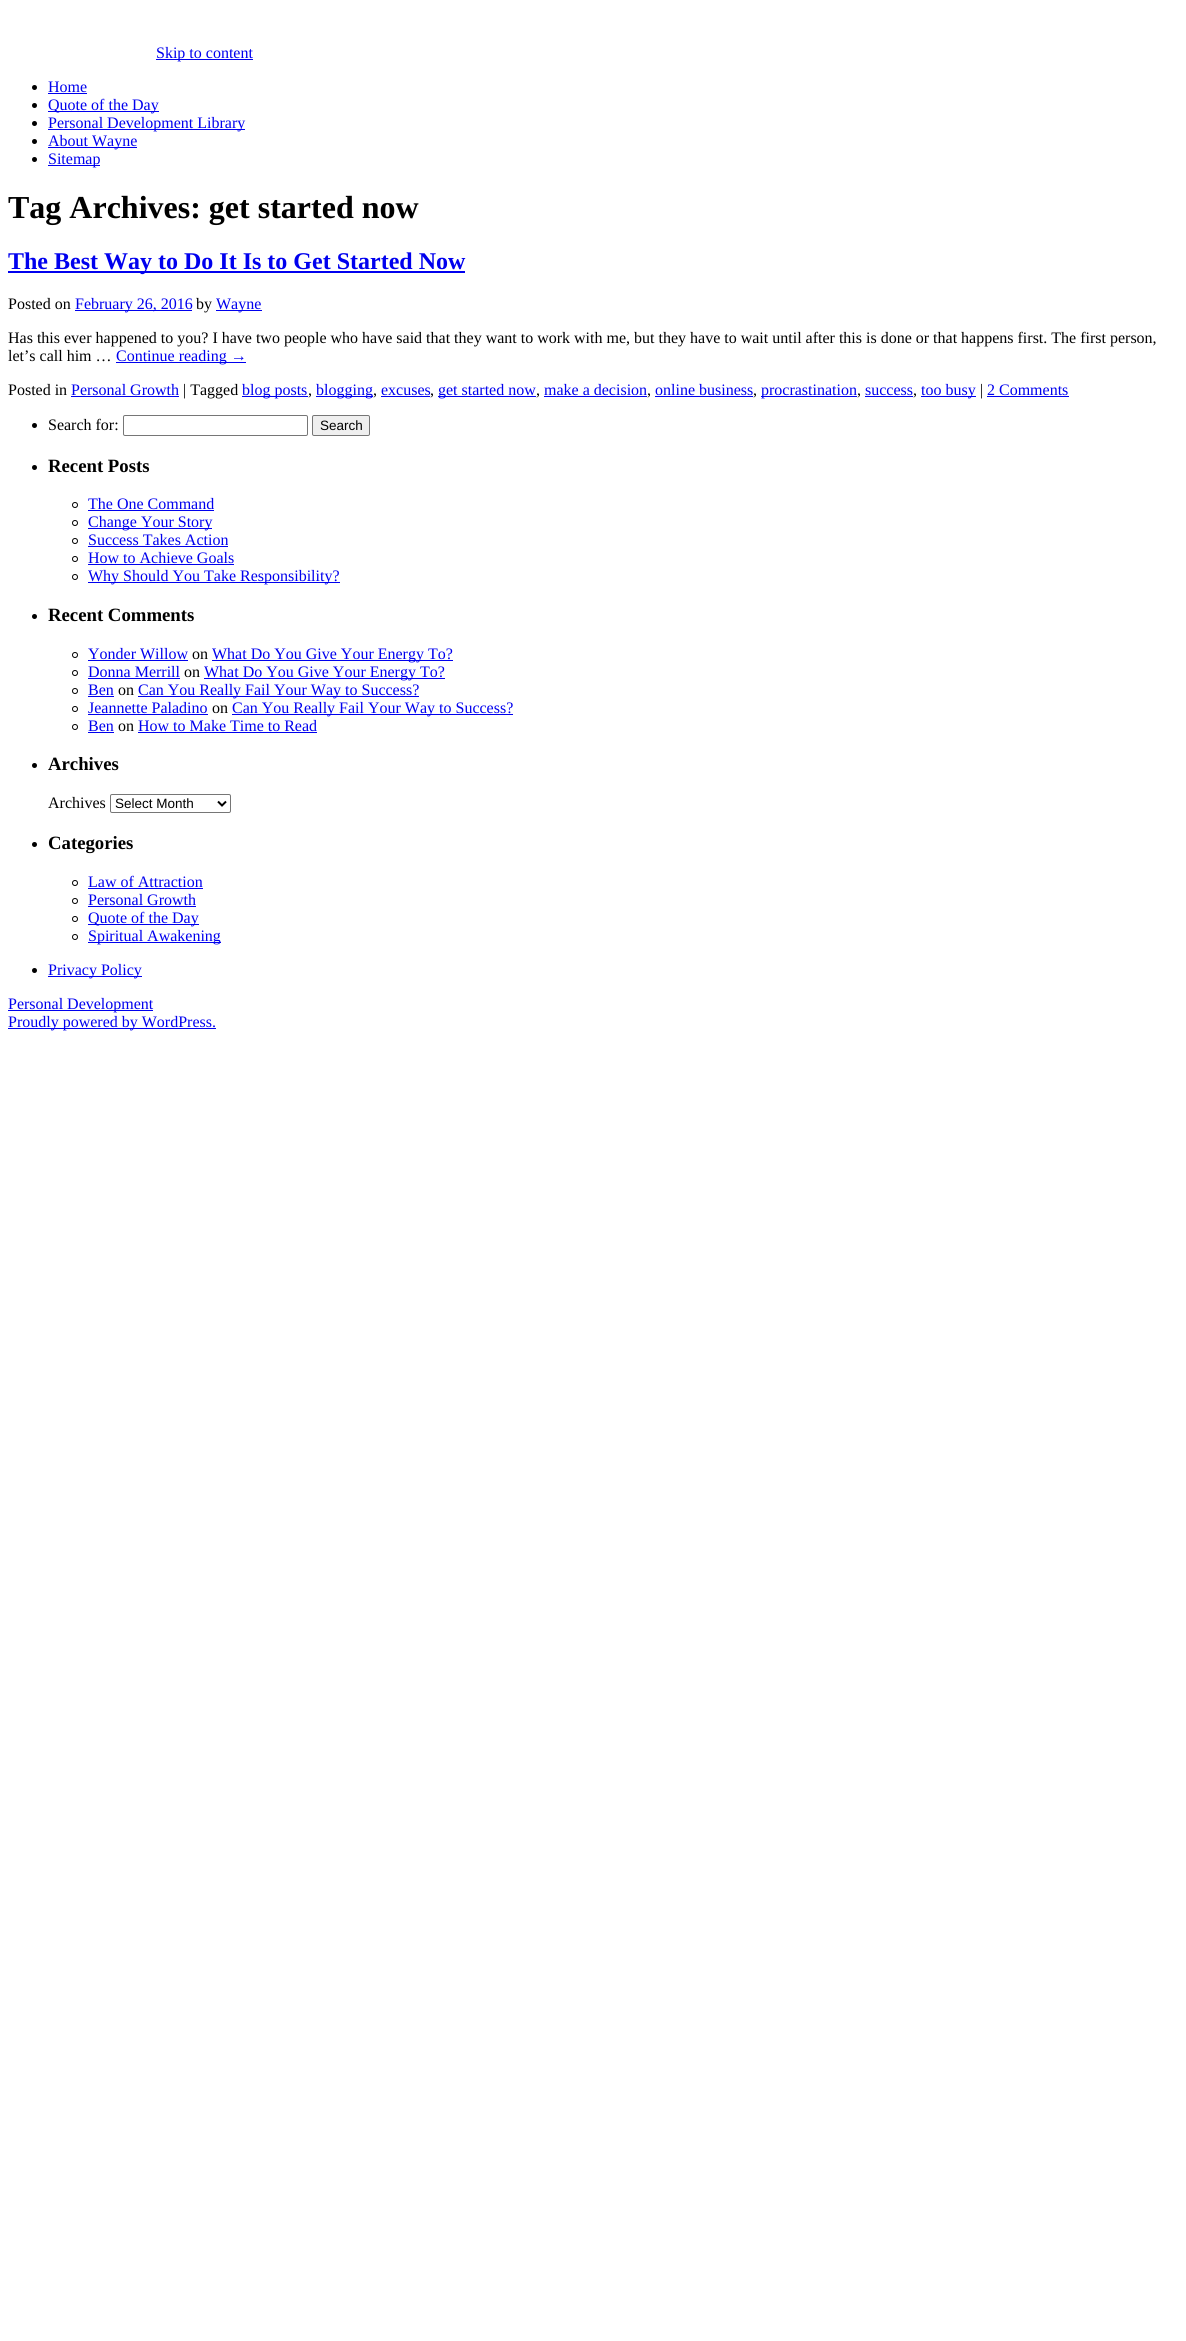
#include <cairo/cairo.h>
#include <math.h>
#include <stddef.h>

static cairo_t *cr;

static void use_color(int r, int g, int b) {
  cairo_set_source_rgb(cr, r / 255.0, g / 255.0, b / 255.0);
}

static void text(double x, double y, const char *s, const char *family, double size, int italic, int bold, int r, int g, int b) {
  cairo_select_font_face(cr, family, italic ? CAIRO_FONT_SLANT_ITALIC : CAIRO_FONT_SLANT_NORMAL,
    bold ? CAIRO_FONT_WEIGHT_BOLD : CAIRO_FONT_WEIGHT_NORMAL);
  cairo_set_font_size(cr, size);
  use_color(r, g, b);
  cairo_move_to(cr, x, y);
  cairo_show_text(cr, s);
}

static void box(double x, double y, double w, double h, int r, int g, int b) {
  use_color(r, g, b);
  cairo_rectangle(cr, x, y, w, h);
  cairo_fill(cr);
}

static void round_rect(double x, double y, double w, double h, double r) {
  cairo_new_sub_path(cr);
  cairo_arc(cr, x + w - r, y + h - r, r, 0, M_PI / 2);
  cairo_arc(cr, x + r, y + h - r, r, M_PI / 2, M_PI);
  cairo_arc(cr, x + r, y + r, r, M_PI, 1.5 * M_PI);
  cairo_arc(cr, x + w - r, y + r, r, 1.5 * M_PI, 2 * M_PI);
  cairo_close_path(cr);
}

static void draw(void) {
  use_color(255, 255, 255);
  cairo_paint(cr);
  box(156, 59, 97, 1, 0, 0, 238);
  use_color(0, 0, 0);
  cairo_arc(cr, 34.5, 87.5, 2.5, 0, 2 * M_PI);
  cairo_fill(cr);
  box(48, 93, 39, 1, 0, 0, 238);
  use_color(0, 0, 0);
  cairo_arc(cr, 34.5, 105.5, 2.5, 0, 2 * M_PI);
  cairo_fill(cr);
  box(48, 111, 111, 1, 0, 0, 238);
  use_color(0, 0, 0);
  cairo_arc(cr, 34.5, 123.5, 2.5, 0, 2 * M_PI);
  cairo_fill(cr);
  box(48, 129, 197, 1, 0, 0, 238);
  use_color(0, 0, 0);
  cairo_arc(cr, 34.5, 141.5, 2.5, 0, 2 * M_PI);
  cairo_fill(cr);
  box(48, 147, 89, 1, 0, 0, 238);
  use_color(0, 0, 0);
  cairo_arc(cr, 34.5, 159.5, 2.5, 0, 2 * M_PI);
  cairo_fill(cr);
  box(48, 165, 52, 1, 0, 0, 238);
  box(8, 271, 457, 2, 0, 0, 238);
  box(75, 310, 117, 1, 0, 0, 238);
  box(216, 310, 46, 1, 0, 0, 238);
  box(116, 362, 130, 1, 0, 0, 238);
  box(71, 396, 108, 1, 0, 0, 238);
  box(242, 396, 66, 1, 0, 0, 238);
  box(316, 396, 57, 1, 0, 0, 238);
  box(381, 396, 49, 1, 0, 0, 238);
  box(438, 396, 98, 1, 0, 0, 238);
  box(544, 396, 103, 1, 0, 0, 238);
  box(655, 396, 98, 1, 0, 0, 238);
  box(761, 396, 96, 1, 0, 0, 238);
  box(865, 396, 48, 1, 0, 0, 238);
  box(921, 396, 55, 1, 0, 0, 238);
  box(987, 396, 82, 1, 0, 0, 238);
  use_color(0, 0, 0);
  cairo_arc(cr, 34.5, 425.5, 2.5, 0, 2 * M_PI);
  cairo_fill(cr);
  round_rect(123.5, 415.5, 184, 20, 1.5);
  use_color(118, 118, 118);
  cairo_set_line_width(cr, 1);
  cairo_stroke(cr);
  use_color(239, 239, 239);
  round_rect(312.5, 415.5, 57, 20, 1.5);
  cairo_fill_preserve(cr);
  use_color(118, 118, 118);
  cairo_stroke(cr);
  use_color(0, 0, 0);
  cairo_arc(cr, 34.5, 467.5, 2.5, 0, 2 * M_PI);
  cairo_fill(cr);
  cairo_arc(cr, 75, 505, 2.5, 0, 2 * M_PI);
  cairo_stroke(cr);
  box(88, 510, 126, 1, 0, 0, 238);
  cairo_arc(cr, 75, 523, 2.5, 0, 2 * M_PI);
  use_color(0, 0, 0);
  cairo_stroke(cr);
  box(88, 528, 124, 1, 0, 0, 238);
  cairo_arc(cr, 75, 541, 2.5, 0, 2 * M_PI);
  use_color(0, 0, 0);
  cairo_stroke(cr);
  box(88, 546, 140, 1, 0, 0, 238);
  cairo_arc(cr, 75, 559, 2.5, 0, 2 * M_PI);
  use_color(0, 0, 0);
  cairo_stroke(cr);
  box(88, 564, 146, 1, 0, 0, 238);
  cairo_arc(cr, 75, 577, 2.5, 0, 2 * M_PI);
  use_color(0, 0, 0);
  cairo_stroke(cr);
  box(88, 582, 252, 1, 0, 0, 238);
  use_color(0, 0, 0);
  cairo_arc(cr, 34.5, 616.5, 2.5, 0, 2 * M_PI);
  cairo_fill(cr);
  cairo_arc(cr, 75, 655, 2.5, 0, 2 * M_PI);
  cairo_stroke(cr);
  box(88, 660, 100, 1, 0, 0, 238);
  box(212, 660, 241, 1, 0, 0, 238);
  cairo_arc(cr, 75, 673, 2.5, 0, 2 * M_PI);
  use_color(0, 0, 0);
  cairo_stroke(cr);
  box(88, 678, 92, 1, 0, 0, 238);
  box(204, 678, 241, 1, 0, 0, 238);
  cairo_arc(cr, 75, 691, 2.5, 0, 2 * M_PI);
  use_color(0, 0, 0);
  cairo_stroke(cr);
  box(88, 696, 26, 1, 0, 0, 238);
  box(138, 696, 281, 1, 0, 0, 238);
  cairo_arc(cr, 75, 709, 2.5, 0, 2 * M_PI);
  use_color(0, 0, 0);
  cairo_stroke(cr);
  box(88, 714, 120, 1, 0, 0, 238);
  box(232, 714, 281, 1, 0, 0, 238);
  cairo_arc(cr, 75, 727, 2.5, 0, 2 * M_PI);
  use_color(0, 0, 0);
  cairo_stroke(cr);
  box(88, 732, 26, 1, 0, 0, 238);
  box(138, 732, 179, 1, 0, 0, 238);
  use_color(0, 0, 0);
  cairo_arc(cr, 34.5, 765.5, 2.5, 0, 2 * M_PI);
  cairo_fill(cr);
  round_rect(110.5, 794.5, 120, 18, 1.5);
  use_color(118, 118, 118);
  cairo_stroke(cr);
  cairo_new_path(cr);
  cairo_move_to(cr, 218, 801.5);
  cairo_line_to(cr, 222, 805.5);
  cairo_line_to(cr, 226, 801.5);
  use_color(0, 0, 0);
  cairo_set_line_width(cr, 2);
  cairo_stroke(cr);
  cairo_arc(cr, 34.5, 844.5, 2.5, 0, 2 * M_PI);
  cairo_fill(cr);
  cairo_arc(cr, 75, 883, 2.5, 0, 2 * M_PI);
  cairo_set_line_width(cr, 1);
  cairo_stroke(cr);
  box(88, 888, 115, 1, 0, 0, 238);
  cairo_arc(cr, 75, 901, 2.5, 0, 2 * M_PI);
  use_color(0, 0, 0);
  cairo_stroke(cr);
  box(88, 906, 108, 1, 0, 0, 238);
  cairo_arc(cr, 75, 919, 2.5, 0, 2 * M_PI);
  use_color(0, 0, 0);
  cairo_stroke(cr);
  box(88, 924, 111, 1, 0, 0, 238);
  cairo_arc(cr, 75, 937, 2.5, 0, 2 * M_PI);
  use_color(0, 0, 0);
  cairo_stroke(cr);
  box(88, 942, 133, 1, 0, 0, 238);
  use_color(0, 0, 0);
  cairo_arc(cr, 34.5, 970.5, 2.5, 0, 2 * M_PI);
  cairo_fill(cr);
  box(48, 976, 94, 1, 0, 0, 238);
  box(8, 1010, 145, 1, 0, 0, 238);
  box(8, 1028, 208, 1, 0, 0, 238);
  text(156, 58, "Skip to content", "Liberation Serif", 16, 0, 0, 0, 0, 238);
  text(48, 92, "Home", "Liberation Serif", 16, 0, 0, 0, 0, 238);
  text(48, 110, "Quote of the Day", "Liberation Serif", 16, 0, 0, 0, 0, 238);
  text(48, 128, "Personal Development Library", "Liberation Serif", 16, 0, 0, 0, 0, 238);
  text(48, 146, "About Wayne", "Liberation Serif", 16, 0, 0, 0, 0, 238);
  text(48, 164, "Sitemap", "Liberation Serif", 16, 0, 0, 0, 0, 238);
  text(8, 218, "Tag Archives: get started now", "Liberation Serif", 32, 0, 1, 0, 0, 0);
  text(8, 269, "The Best Way to Do It Is to Get Started Now", "Liberation Serif", 24, 0, 1, 0, 0, 238);
  text(8, 309, "Posted on", "Liberation Serif", 16, 0, 0, 0, 0, 0);
  text(75, 309, "February 26, 2016", "Liberation Serif", 16, 0, 0, 0, 0, 238);
  text(196, 309, "by", "Liberation Serif", 16, 0, 0, 0, 0, 0);
  text(216, 309, "Wayne", "Liberation Serif", 16, 0, 0, 0, 0, 238);
  text(8, 343, "Has this ever happened to you? I have two people who have said that they want to work with me, but they have to wait until after this is done or that happens first. The first person,", "Liberation Serif", 16, 0, 0, 0, 0, 0);
  text(8, 361, "let’s call him …", "Liberation Serif", 16, 0, 0, 0, 0, 0);
  text(116, 361, "Continue reading →", "Liberation Serif", 16, 0, 0, 0, 0, 238);
  text(8, 395, "Posted in", "Liberation Serif", 16, 0, 0, 0, 0, 0);
  text(71, 395, "Personal Growth", "Liberation Serif", 16, 0, 0, 0, 0, 238);
  text(183, 395, "| Tagged", "Liberation Serif", 16, 0, 0, 0, 0, 0);
  text(242, 395, "blog posts", "Liberation Serif", 16, 0, 0, 0, 0, 238);
  text(308, 395, ",", "Liberation Serif", 16, 0, 0, 0, 0, 0);
  text(316, 395, "blogging", "Liberation Serif", 16, 0, 0, 0, 0, 238);
  text(373, 395, ",", "Liberation Serif", 16, 0, 0, 0, 0, 0);
  text(381, 395, "excuses", "Liberation Serif", 16, 0, 0, 0, 0, 238);
  text(430, 395, ",", "Liberation Serif", 16, 0, 0, 0, 0, 0);
  text(438, 395, "get started now", "Liberation Serif", 16, 0, 0, 0, 0, 238);
  text(536, 395, ",", "Liberation Serif", 16, 0, 0, 0, 0, 0);
  text(544, 395, "make a decision", "Liberation Serif", 16, 0, 0, 0, 0, 238);
  text(647, 395, ",", "Liberation Serif", 16, 0, 0, 0, 0, 0);
  text(655, 395, "online business", "Liberation Serif", 16, 0, 0, 0, 0, 238);
  text(753, 395, ",", "Liberation Serif", 16, 0, 0, 0, 0, 0);
  text(761, 395, "procrastination", "Liberation Serif", 16, 0, 0, 0, 0, 238);
  text(857, 395, ",", "Liberation Serif", 16, 0, 0, 0, 0, 0);
  text(865, 395, "success", "Liberation Serif", 16, 0, 0, 0, 0, 238);
  text(913, 395, ",", "Liberation Serif", 16, 0, 0, 0, 0, 0);
  text(921, 395, "too busy", "Liberation Serif", 16, 0, 0, 0, 0, 238);
  text(980, 395, "|", "Liberation Serif", 16, 0, 0, 0, 0, 0);
  text(987, 395, "2 Comments", "Liberation Serif", 16, 0, 0, 0, 0, 238);
  text(48, 430, "Search for:", "Liberation Serif", 16, 0, 0, 0, 0, 0);
  text(320, 430, "Search", "Liberation Sans", 13.5, 0, 0, 0, 0, 0);
  text(48, 472, "Recent Posts", "Liberation Serif", 18.75, 0, 1, 0, 0, 0);
  text(88, 509, "The One Command", "Liberation Serif", 16, 0, 0, 0, 0, 238);
  text(88, 527, "Change Your Story", "Liberation Serif", 16, 0, 0, 0, 0, 238);
  text(88, 545, "Success Takes Action", "Liberation Serif", 16, 0, 0, 0, 0, 238);
  text(88, 563, "How to Achieve Goals", "Liberation Serif", 16, 0, 0, 0, 0, 238);
  text(88, 581, "Why Should You Take Responsibility?", "Liberation Serif", 16, 0, 0, 0, 0, 238);
  text(48, 621, "Recent Comments", "Liberation Serif", 18.75, 0, 1, 0, 0, 0);
  text(88, 659, "Yonder Willow", "Liberation Serif", 16, 0, 0, 0, 0, 238);
  text(192, 659, "on", "Liberation Serif", 16, 0, 0, 0, 0, 0);
  text(212, 659, "What Do You Give Your Energy To?", "Liberation Serif", 16, 0, 0, 0, 0, 238);
  text(88, 677, "Donna Merrill", "Liberation Serif", 16, 0, 0, 0, 0, 238);
  text(184, 677, "on", "Liberation Serif", 16, 0, 0, 0, 0, 0);
  text(204, 677, "What Do You Give Your Energy To?", "Liberation Serif", 16, 0, 0, 0, 0, 238);
  text(88, 695, "Ben", "Liberation Serif", 16, 0, 0, 0, 0, 238);
  text(118, 695, "on", "Liberation Serif", 16, 0, 0, 0, 0, 0);
  text(138, 695, "Can You Really Fail Your Way to Success?", "Liberation Serif", 16, 0, 0, 0, 0, 238);
  text(88, 713, "Jeannette Paladino", "Liberation Serif", 16, 0, 0, 0, 0, 238);
  text(212, 713, "on", "Liberation Serif", 16, 0, 0, 0, 0, 0);
  text(232, 713, "Can You Really Fail Your Way to Success?", "Liberation Serif", 16, 0, 0, 0, 0, 238);
  text(88, 731, "Ben", "Liberation Serif", 16, 0, 0, 0, 0, 238);
  text(118, 731, "on", "Liberation Serif", 16, 0, 0, 0, 0, 0);
  text(138, 731, "How to Make Time to Read", "Liberation Serif", 16, 0, 0, 0, 0, 238);
  text(48, 770, "Archives", "Liberation Serif", 18.75, 0, 1, 0, 0, 0);
  text(48, 808, "Archives", "Liberation Serif", 16, 0, 0, 0, 0, 0);
  text(115, 808, "Select Month", "Liberation Sans", 13.5, 0, 0, 0, 0, 0);
  text(48, 849, "Categories", "Liberation Serif", 18.75, 0, 1, 0, 0, 0);
  text(88, 887, "Law of Attraction", "Liberation Serif", 16, 0, 0, 0, 0, 238);
  text(88, 905, "Personal Growth", "Liberation Serif", 16, 0, 0, 0, 0, 238);
  text(88, 923, "Quote of the Day", "Liberation Serif", 16, 0, 0, 0, 0, 238);
  text(88, 941, "Spiritual Awakening", "Liberation Serif", 16, 0, 0, 0, 0, 238);
  text(48, 975, "Privacy Policy", "Liberation Serif", 16, 0, 0, 0, 0, 238);
  text(8, 1009, "Personal Development", "Liberation Serif", 16, 0, 0, 0, 0, 238);
  text(8, 1027, "Proudly powered by WordPress.", "Liberation Serif", 16, 0, 0, 0, 0, 238);
}

int main(void) {
  cairo_surface_t *surface = cairo_image_surface_create(CAIRO_FORMAT_RGB24, 1186, 2341);
  cr = cairo_create(surface);
  cairo_font_options_t *options = cairo_font_options_create();
  cairo_font_options_set_hint_metrics(options, CAIRO_HINT_METRICS_OFF);
  cairo_font_options_set_hint_style(options, CAIRO_HINT_STYLE_NONE);
  cairo_set_font_options(cr, options);
  cairo_set_miter_limit(cr, 4);
  draw();
  cairo_surface_write_to_png(surface, "out.png");
  cairo_font_options_destroy(options);
  cairo_destroy(cr);
  cairo_surface_destroy(surface);
  return 0;
}
